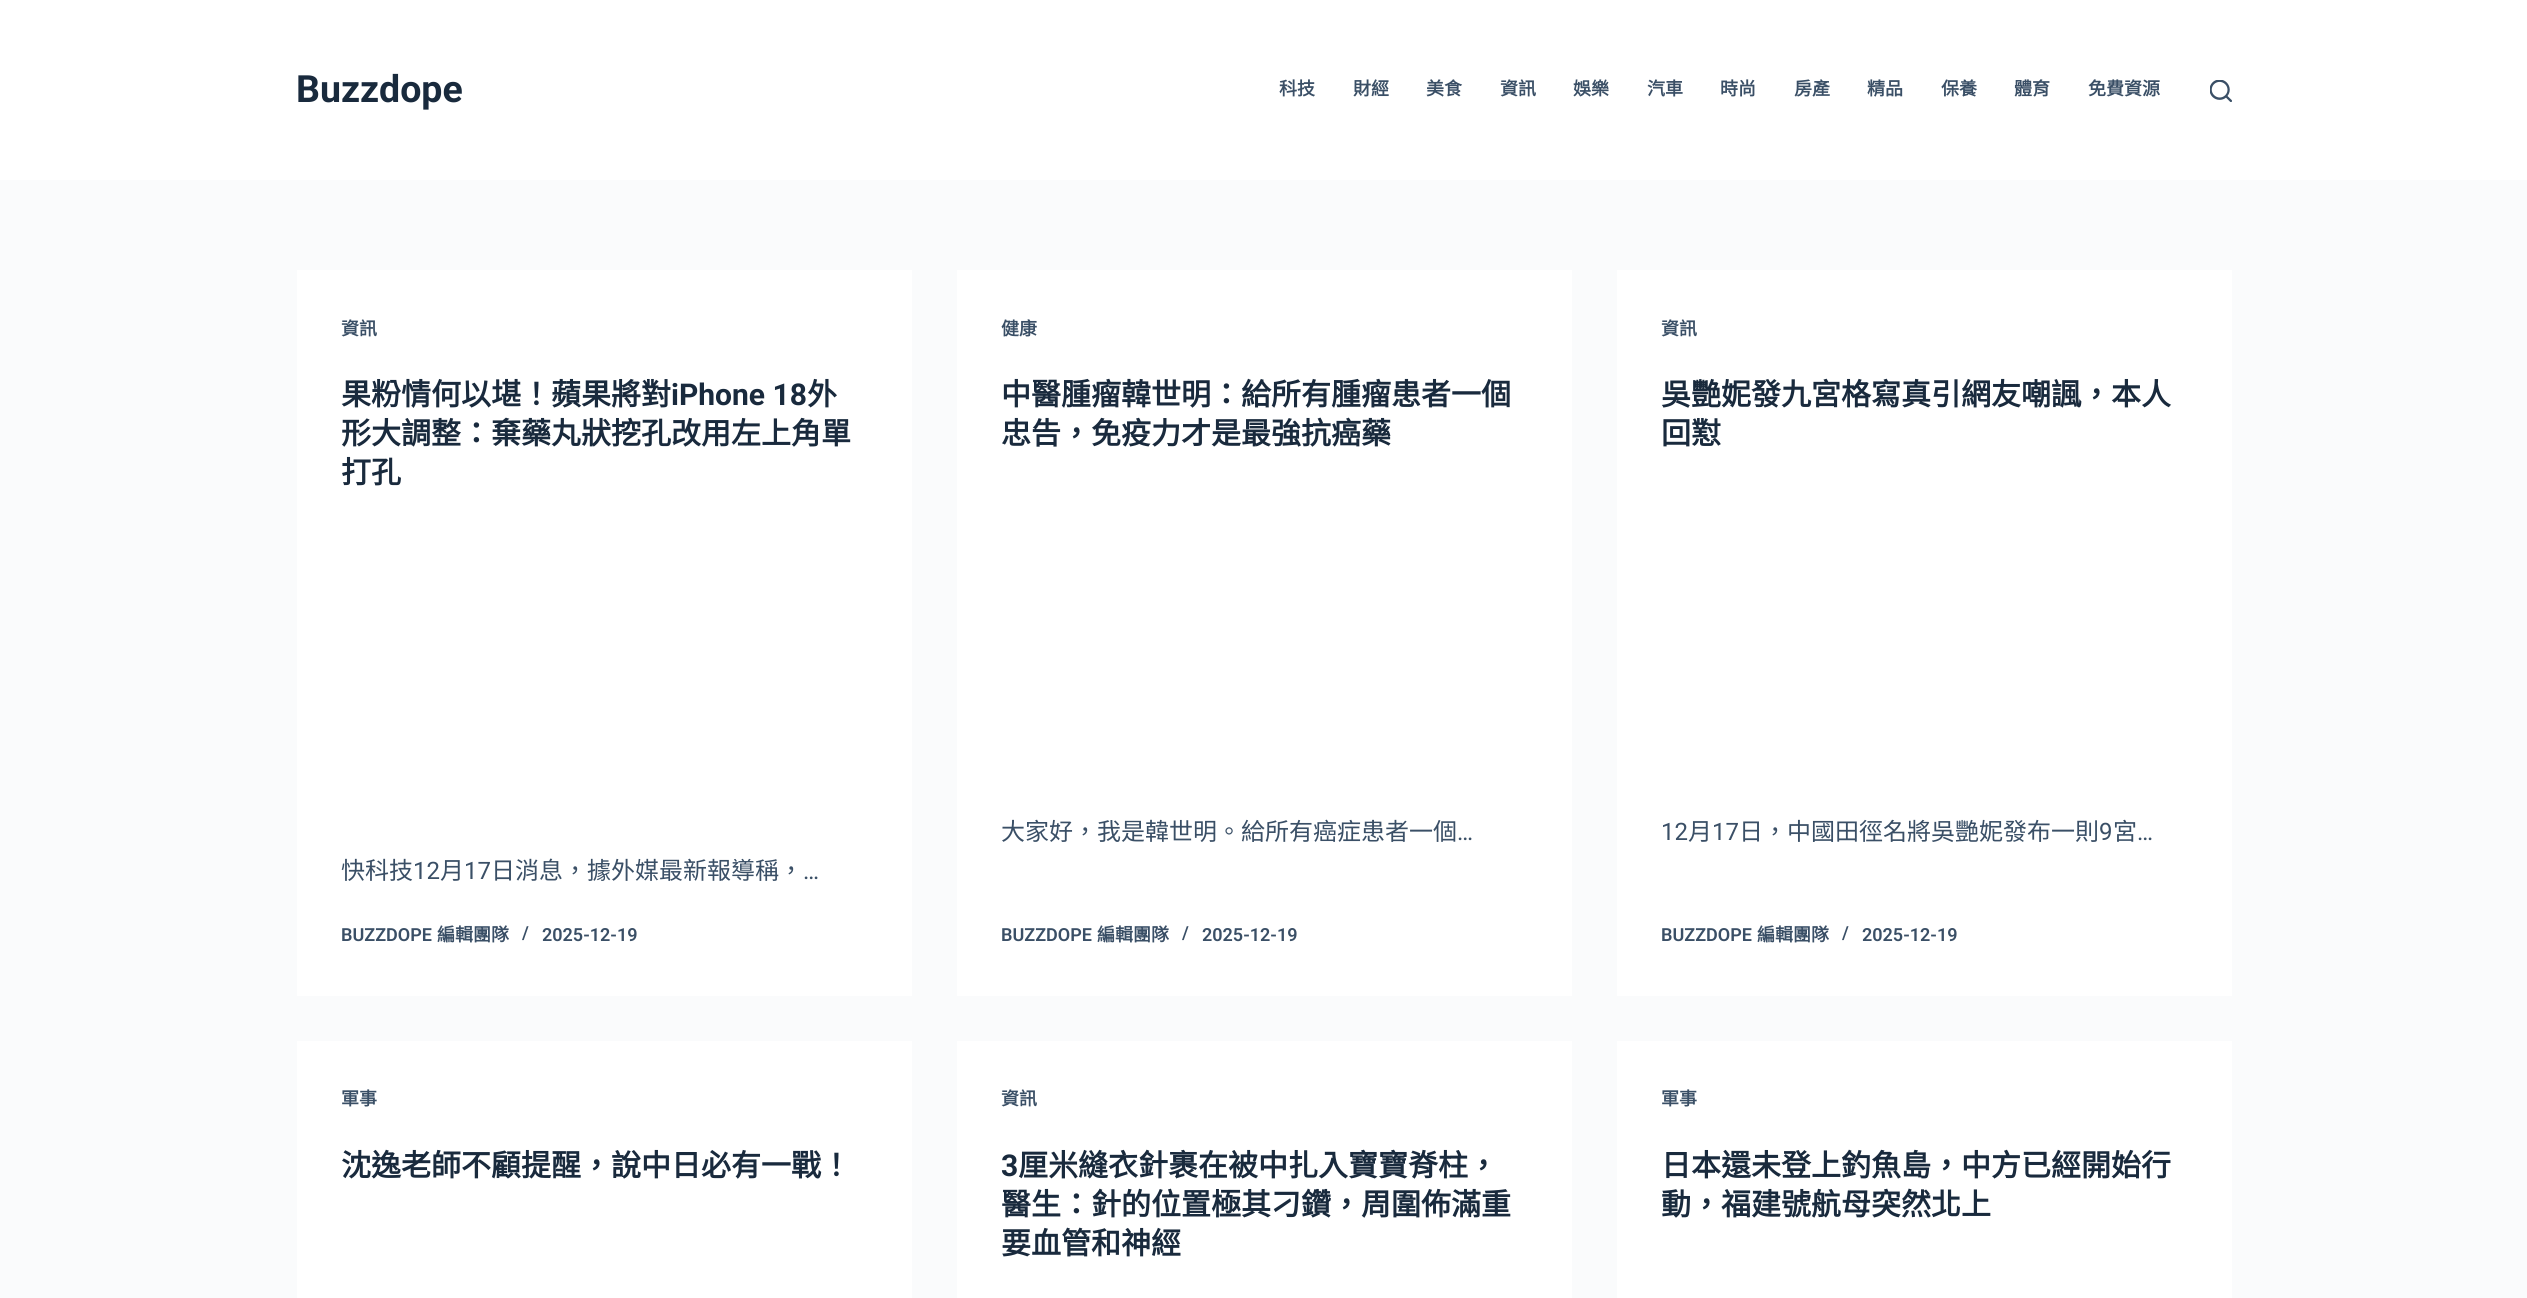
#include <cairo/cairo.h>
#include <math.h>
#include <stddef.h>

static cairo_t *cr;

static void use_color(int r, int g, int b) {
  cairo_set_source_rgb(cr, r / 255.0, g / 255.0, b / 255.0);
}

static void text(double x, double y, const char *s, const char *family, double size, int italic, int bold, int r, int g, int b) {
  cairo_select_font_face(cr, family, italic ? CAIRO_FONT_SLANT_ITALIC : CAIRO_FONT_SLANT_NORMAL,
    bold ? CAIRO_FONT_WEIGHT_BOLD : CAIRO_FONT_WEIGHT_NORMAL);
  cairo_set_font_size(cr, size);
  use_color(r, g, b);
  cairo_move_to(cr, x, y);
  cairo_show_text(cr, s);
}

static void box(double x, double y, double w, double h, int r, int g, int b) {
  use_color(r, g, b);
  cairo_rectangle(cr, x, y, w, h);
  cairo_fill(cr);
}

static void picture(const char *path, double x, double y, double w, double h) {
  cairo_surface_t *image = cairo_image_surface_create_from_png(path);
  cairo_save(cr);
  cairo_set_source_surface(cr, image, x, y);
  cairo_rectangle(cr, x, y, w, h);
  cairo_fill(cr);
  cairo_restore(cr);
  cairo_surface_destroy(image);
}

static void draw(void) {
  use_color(250, 251, 252);
  cairo_paint(cr);
  box(0, 0, 2527, 180, 255, 255, 255);
  picture("img_01.png", 2210, 80, 22, 22);
  box(297, 270, 615, 726, 255, 255, 255);
  box(957, 270, 615, 726, 255, 255, 255);
  box(1617, 270, 615, 726, 255, 255, 255);
  box(297, 1041, 615, 257, 255, 255, 255);
  box(957, 1041, 615, 257, 255, 255, 255);
  box(1617, 1041, 615, 257, 255, 255, 255);
  text(296, 102, "Buzzdope", "Roboto", 37.5, 0, 1, 25, 42, 61);
  text(1279, 95, "科技", "Noto Sans CJK TC", 18, 0, 1, 58, 79, 102);
  text(1353, 95, "財經", "Noto Sans CJK TC", 18, 0, 1, 58, 79, 102);
  text(1426, 95, "美食", "Noto Sans CJK TC", 18, 0, 1, 58, 79, 102);
  text(1500, 95, "資訊", "Noto Sans CJK TC", 18, 0, 1, 58, 79, 102);
  text(1573, 95, "娛樂", "Noto Sans CJK TC", 18, 0, 1, 58, 79, 102);
  text(1647, 95, "汽車", "Noto Sans CJK TC", 18, 0, 1, 58, 79, 102);
  text(1720, 95, "時尚", "Noto Sans CJK TC", 18, 0, 1, 58, 79, 102);
  text(1794, 95, "房產", "Noto Sans CJK TC", 18, 0, 1, 58, 79, 102);
  text(1867, 95, "精品", "Noto Sans CJK TC", 18, 0, 1, 58, 79, 102);
  text(1941, 95, "保養", "Noto Sans CJK TC", 18, 0, 1, 58, 79, 102);
  text(2014, 95, "體育", "Noto Sans CJK TC", 18, 0, 1, 58, 79, 102);
  text(2088, 95, "免費資源", "Noto Sans CJK TC", 18, 0, 1, 58, 79, 102);
  text(341, 335, "資訊", "Noto Sans CJK TC", 18, 0, 1, 58, 79, 102);
  text(341, 405, "果粉情何以堪！蘋果將對", "Noto Sans CJK TC", 30, 0, 1, 25, 42, 61);
  text(671, 405, "iPhone 18", "Roboto", 30, 0, 1, 25, 42, 61);
  text(807, 405, "外", "Noto Sans CJK TC", 30, 0, 1, 25, 42, 61);
  text(341, 444, "形大調整：棄藥丸狀挖孔改用左上角單", "Noto Sans CJK TC", 30, 0, 1, 25, 42, 61);
  text(341, 483, "打孔", "Noto Sans CJK TC", 30, 0, 1, 25, 42, 61);
  text(341, 879, "快科技", "Noto Sans CJK TC", 24, 0, 0, 58, 79, 102);
  text(413, 879, "12", "Roboto", 24, 0, 0, 58, 79, 102);
  text(440, 879, "月", "Noto Sans CJK TC", 24, 0, 0, 58, 79, 102);
  text(464, 879, "17", "Roboto", 24, 0, 0, 58, 79, 102);
  text(491, 879, "日消息，據外媒最新報導稱，", "Noto Sans CJK TC", 24, 0, 0, 58, 79, 102);
  text(803, 879, "…", "Roboto", 24, 0, 0, 58, 79, 102);
  text(341, 941, "BUZZDOPE", "Roboto SemiBold", 18, 0, 0, 58, 79, 102);
  text(437, 941, "編輯團隊", "Noto Sans CJK TC", 18, 0, 1, 58, 79, 102);
  text(522, 939, "/", "Roboto SemiBold", 18, 0, 0, 58, 79, 102);
  text(542, 941, "2025-12-19", "Roboto SemiBold", 18, 0, 0, 58, 79, 102);
  text(1001, 335, "健康", "Noto Sans CJK TC", 18, 0, 1, 58, 79, 102);
  text(1001, 405, "中醫腫瘤韓世明：給所有腫瘤患者一個", "Noto Sans CJK TC", 30, 0, 1, 25, 42, 61);
  text(1001, 444, "忠告，免疫力才是最強抗癌藥", "Noto Sans CJK TC", 30, 0, 1, 25, 42, 61);
  text(1001, 840, "大家好，我是韓世明。給所有癌症患者一個", "Noto Sans CJK TC", 24, 0, 0, 58, 79, 102);
  text(1457, 840, "…", "Roboto", 24, 0, 0, 58, 79, 102);
  text(1001, 941, "BUZZDOPE", "Roboto SemiBold", 18, 0, 0, 58, 79, 102);
  text(1097, 941, "編輯團隊", "Noto Sans CJK TC", 18, 0, 1, 58, 79, 102);
  text(1182, 939, "/", "Roboto SemiBold", 18, 0, 0, 58, 79, 102);
  text(1202, 941, "2025-12-19", "Roboto SemiBold", 18, 0, 0, 58, 79, 102);
  text(1661, 335, "資訊", "Noto Sans CJK TC", 18, 0, 1, 58, 79, 102);
  text(1661, 405, "吳艷妮發九宮格寫真引網友嘲諷，本人", "Noto Sans CJK TC", 30, 0, 1, 25, 42, 61);
  text(1661, 444, "回懟", "Noto Sans CJK TC", 30, 0, 1, 25, 42, 61);
  text(1661, 840, "12", "Roboto", 24, 0, 0, 58, 79, 102);
  text(1688, 840, "月", "Noto Sans CJK TC", 24, 0, 0, 58, 79, 102);
  text(1712, 840, "17", "Roboto", 24, 0, 0, 58, 79, 102);
  text(1739, 840, "日，中國田徑名將吳艷妮發布一則", "Noto Sans CJK TC", 24, 0, 0, 58, 79, 102);
  text(2099, 840, "9", "Roboto", 24, 0, 0, 58, 79, 102);
  text(2113, 840, "宮", "Noto Sans CJK TC", 24, 0, 0, 58, 79, 102);
  text(2137, 840, "…", "Roboto", 24, 0, 0, 58, 79, 102);
  text(1661, 941, "BUZZDOPE", "Roboto SemiBold", 18, 0, 0, 58, 79, 102);
  text(1757, 941, "編輯團隊", "Noto Sans CJK TC", 18, 0, 1, 58, 79, 102);
  text(1842, 939, "/", "Roboto SemiBold", 18, 0, 0, 58, 79, 102);
  text(1862, 941, "2025-12-19", "Roboto SemiBold", 18, 0, 0, 58, 79, 102);
  text(341, 1105, "軍事", "Noto Sans CJK TC", 18, 0, 1, 58, 79, 102);
  text(341, 1176, "沈逸老師不顧提醒，說中日必有一戰！", "Noto Sans CJK TC", 30, 0, 1, 25, 42, 61);
  text(1001, 1105, "資訊", "Noto Sans CJK TC", 18, 0, 1, 58, 79, 102);
  text(1001, 1176, "3", "Roboto", 30, 0, 1, 25, 42, 61);
  text(1018, 1176, "厘米縫衣針裹在被中扎入寶寶脊柱，", "Noto Sans CJK TC", 30, 0, 1, 25, 42, 61);
  text(1001, 1215, "醫生：針的位置極其刁鑽，周圍佈滿重", "Noto Sans CJK TC", 30, 0, 1, 25, 42, 61);
  text(1001, 1254, "要血管和神經", "Noto Sans CJK TC", 30, 0, 1, 25, 42, 61);
  text(1661, 1105, "軍事", "Noto Sans CJK TC", 18, 0, 1, 58, 79, 102);
  text(1661, 1176, "日本還未登上釣魚島，中方已經開始行", "Noto Sans CJK TC", 30, 0, 1, 25, 42, 61);
  text(1661, 1215, "動，福建號航母突然北上", "Noto Sans CJK TC", 30, 0, 1, 25, 42, 61);
}

int main(void) {
  cairo_surface_t *surface = cairo_image_surface_create(CAIRO_FORMAT_RGB24, 2527, 1298);
  cr = cairo_create(surface);
  cairo_font_options_t *options = cairo_font_options_create();
  cairo_font_options_set_hint_metrics(options, CAIRO_HINT_METRICS_OFF);
  cairo_font_options_set_hint_style(options, CAIRO_HINT_STYLE_NONE);
  cairo_set_font_options(cr, options);
  cairo_set_miter_limit(cr, 4);
  draw();
  cairo_surface_write_to_png(surface, "out.png");
  cairo_font_options_destroy(options);
  cairo_destroy(cr);
  cairo_surface_destroy(surface);
  return 0;
}
